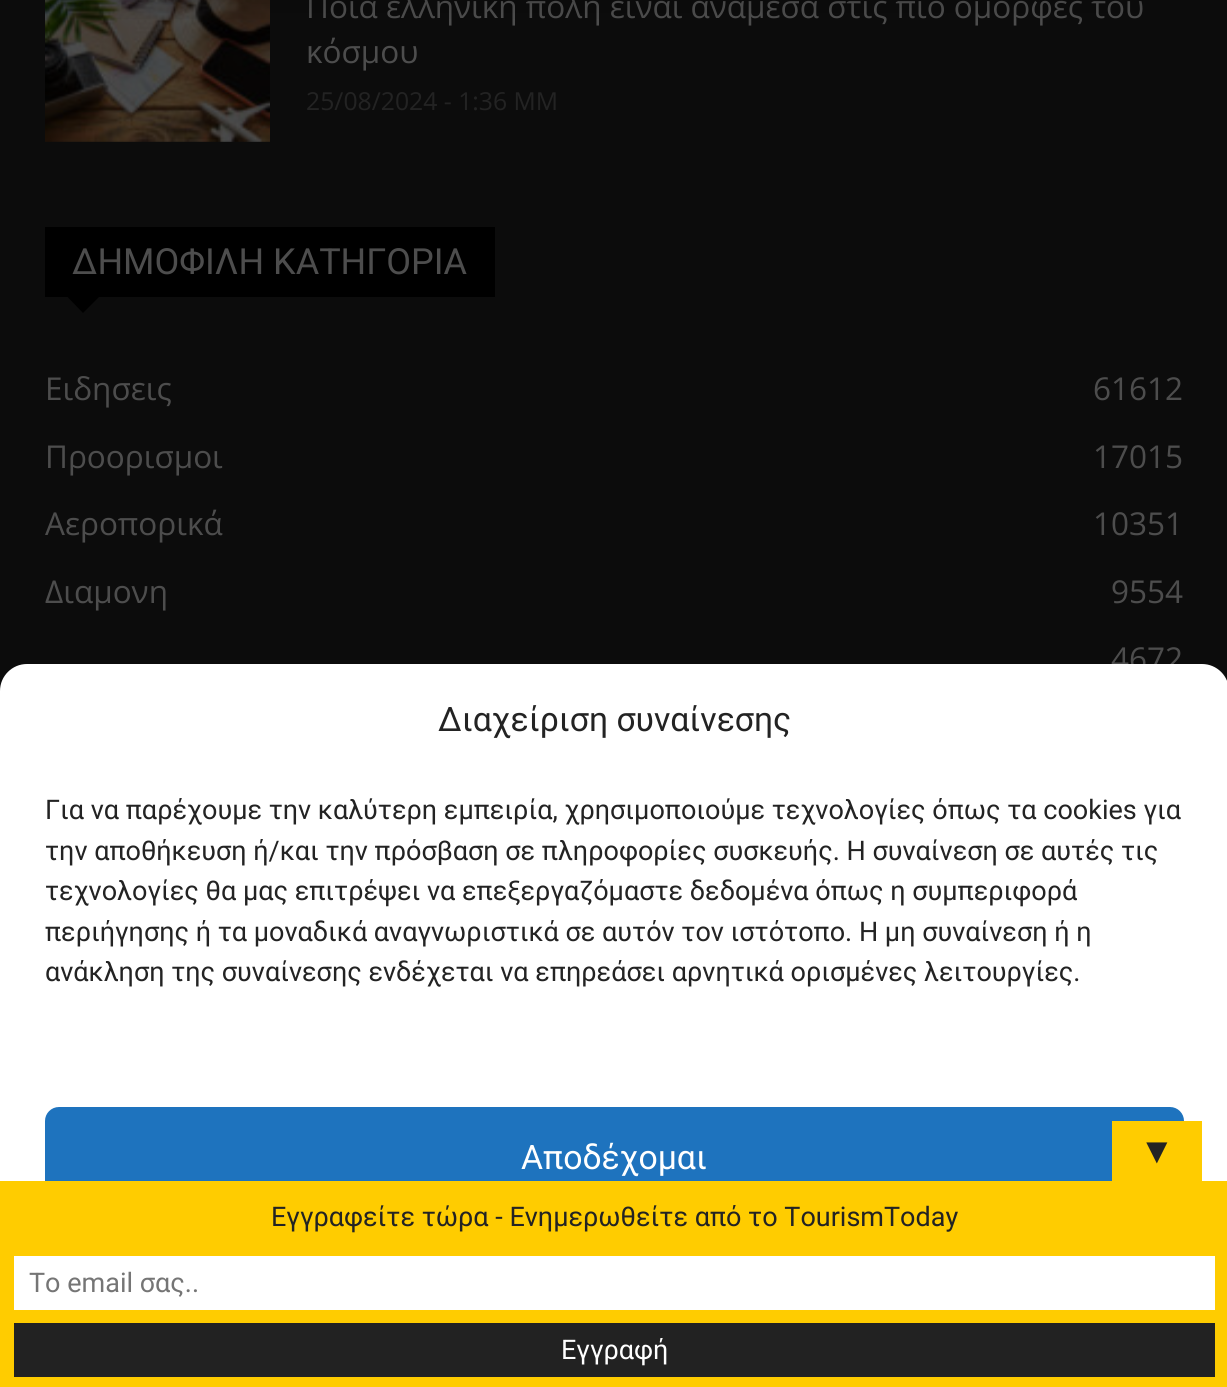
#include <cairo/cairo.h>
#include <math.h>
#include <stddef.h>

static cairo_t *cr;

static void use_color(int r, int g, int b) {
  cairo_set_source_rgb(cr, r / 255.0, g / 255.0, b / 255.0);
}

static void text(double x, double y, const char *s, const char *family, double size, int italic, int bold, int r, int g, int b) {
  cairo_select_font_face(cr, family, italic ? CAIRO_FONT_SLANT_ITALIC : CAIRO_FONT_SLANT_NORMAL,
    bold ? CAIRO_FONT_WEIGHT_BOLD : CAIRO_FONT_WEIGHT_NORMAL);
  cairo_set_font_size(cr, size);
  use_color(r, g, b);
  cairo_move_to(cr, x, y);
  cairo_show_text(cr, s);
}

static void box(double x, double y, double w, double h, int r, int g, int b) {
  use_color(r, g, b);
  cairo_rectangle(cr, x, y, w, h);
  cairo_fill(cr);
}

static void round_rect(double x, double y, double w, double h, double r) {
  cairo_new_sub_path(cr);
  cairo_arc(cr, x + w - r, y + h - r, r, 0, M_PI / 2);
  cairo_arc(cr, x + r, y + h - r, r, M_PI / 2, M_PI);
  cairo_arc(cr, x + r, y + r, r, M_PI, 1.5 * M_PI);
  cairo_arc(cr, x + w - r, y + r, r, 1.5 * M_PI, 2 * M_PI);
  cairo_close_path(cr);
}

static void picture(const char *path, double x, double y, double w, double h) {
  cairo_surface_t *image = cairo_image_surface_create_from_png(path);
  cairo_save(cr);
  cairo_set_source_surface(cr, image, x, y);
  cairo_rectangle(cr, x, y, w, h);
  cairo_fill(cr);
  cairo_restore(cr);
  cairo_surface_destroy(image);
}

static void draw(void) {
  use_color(12, 12, 12);
  cairo_paint(cr);
  picture("img_01.png", 45, 0, 225, 142);
  box(45, 227, 450, 70, 0, 0, 0);
  cairo_new_path(cr);
  cairo_move_to(cr, 67.5, 297);
  cairo_line_to(cr, 99, 297);
  cairo_line_to(cr, 83, 313);
  cairo_close_path(cr);
  cairo_fill(cr);
  text(306, 18, "Ποια ελληνική πόλη είναι ανάμεσα στις πιο όμορφες του", "Open Sans", 31.5, 0, 0, 77, 77, 77);
  text(306, 63, "κόσμου", "Open Sans", 31.5, 0, 0, 77, 77, 77);
  text(306, 110, "25/08/2024 - 1:36 ΜΜ", "Open Sans", 24.75, 0, 0, 35, 35, 35);
  text(72, 274, "ΔΗΜΟΦΙΛΗ ΚΑΤΗΓΟΡΙΑ", "Roboto", 36, 0, 0, 77, 77, 77);
  text(45, 400, "Ειδησεις", "Open Sans", 31.5, 0, 0, 77, 77, 77);
  text(1093, 400, "61612", "Open Sans", 31.5, 0, 0, 77, 77, 77);
  text(45, 468, "Προορισμοι", "Open Sans", 31.5, 0, 0, 77, 77, 77);
  text(1093, 468, "17015", "Open Sans", 31.5, 0, 0, 77, 77, 77);
  text(45, 535, "Αεροπορικά", "Open Sans", 31.5, 0, 0, 77, 77, 77);
  text(1093, 535, "10351", "Open Sans", 31.5, 0, 0, 77, 77, 77);
  text(45, 603, "Διαμονη", "Open Sans", 31.5, 0, 0, 77, 77, 77);
  text(1111, 603, "9554", "Open Sans", 31.5, 0, 0, 77, 77, 77);
  text(1111, 670, "4672", "Open Sans", 31.5, 0, 0, 77, 77, 77);
  picture("img_02.png", 45, 0, 1098, 19);
  use_color(255, 255, 255);
  round_rect(0, 664, 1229, 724, 27);
  cairo_fill(cr);
  text(438, 731, "Διαχείριση συναίνεσης", "Roboto", 33.75, 0, 0, 35, 35, 35);
  text(45, 819, "Για να παρέχουμε την καλύτερη εμπειρία, χρησιμοποιούμε τεχνολογίες όπως τα cookies για", "Roboto", 27, 0, 0, 35, 35, 35);
  text(45, 860, "την αποθήκευση ή/και την πρόσβαση σε πληροφορίες συσκευής. Η συναίνεση σε αυτές τις", "Roboto", 27, 0, 0, 35, 35, 35);
  text(45, 900, "τεχνολογίες θα μας επιτρέψει να επεξεργαζόμαστε δεδομένα όπως η συμπεριφορά", "Roboto", 27, 0, 0, 35, 35, 35);
  text(45, 941, "περιήγησης ή τα μοναδικά αναγνωριστικά σε αυτόν τον ιστότοπο. Η μη συναίνεση ή η", "Roboto", 27, 0, 0, 35, 35, 35);
  text(45, 981, "ανάκληση της συναίνεσης ενδέχεται να επηρεάσει αρνητικά ορισμένες λειτουργίες.", "Roboto", 27, 0, 0, 35, 35, 35);
  use_color(30, 115, 190);
  round_rect(46, 1108, 1137, 99, 13);
  cairo_fill_preserve(cr);
  cairo_stroke(cr);
  text(521, 1169, "Αποδέχομαι", "Roboto", 33.75, 0, 0, 255, 255, 255);
  box(1112, 1121, 90, 60, 255, 204, 0);
  text(1139, 1163, "▼", "Liberation Sans", 36, 0, 0, 35, 35, 35);
  box(0, 1181, 1227, 206, 255, 204, 0);
  text(271, 1226, "Εγγραφείτε τώρα - Ενημερωθείτε από το TourismToday", "Roboto", 27, 0, 0, 35, 35, 35);
  box(14, 1256, 1201, 54, 255, 255, 255);
  text(29, 1292, "Το email σας..", "Roboto", 27, 0, 0, 117, 117, 117);
  box(14, 1323, 1201, 54, 34, 34, 34);
  text(561, 1359, "Εγγραφή", "Roboto", 27, 0, 0, 255, 255, 255);
}

int main(void) {
  cairo_surface_t *surface = cairo_image_surface_create(CAIRO_FORMAT_RGB24, 1227, 1387);
  cr = cairo_create(surface);
  cairo_font_options_t *options = cairo_font_options_create();
  cairo_font_options_set_hint_metrics(options, CAIRO_HINT_METRICS_OFF);
  cairo_font_options_set_hint_style(options, CAIRO_HINT_STYLE_NONE);
  cairo_set_font_options(cr, options);
  cairo_set_miter_limit(cr, 4);
  draw();
  cairo_surface_write_to_png(surface, "out.png");
  cairo_font_options_destroy(options);
  cairo_destroy(cr);
  cairo_surface_destroy(surface);
  return 0;
}
